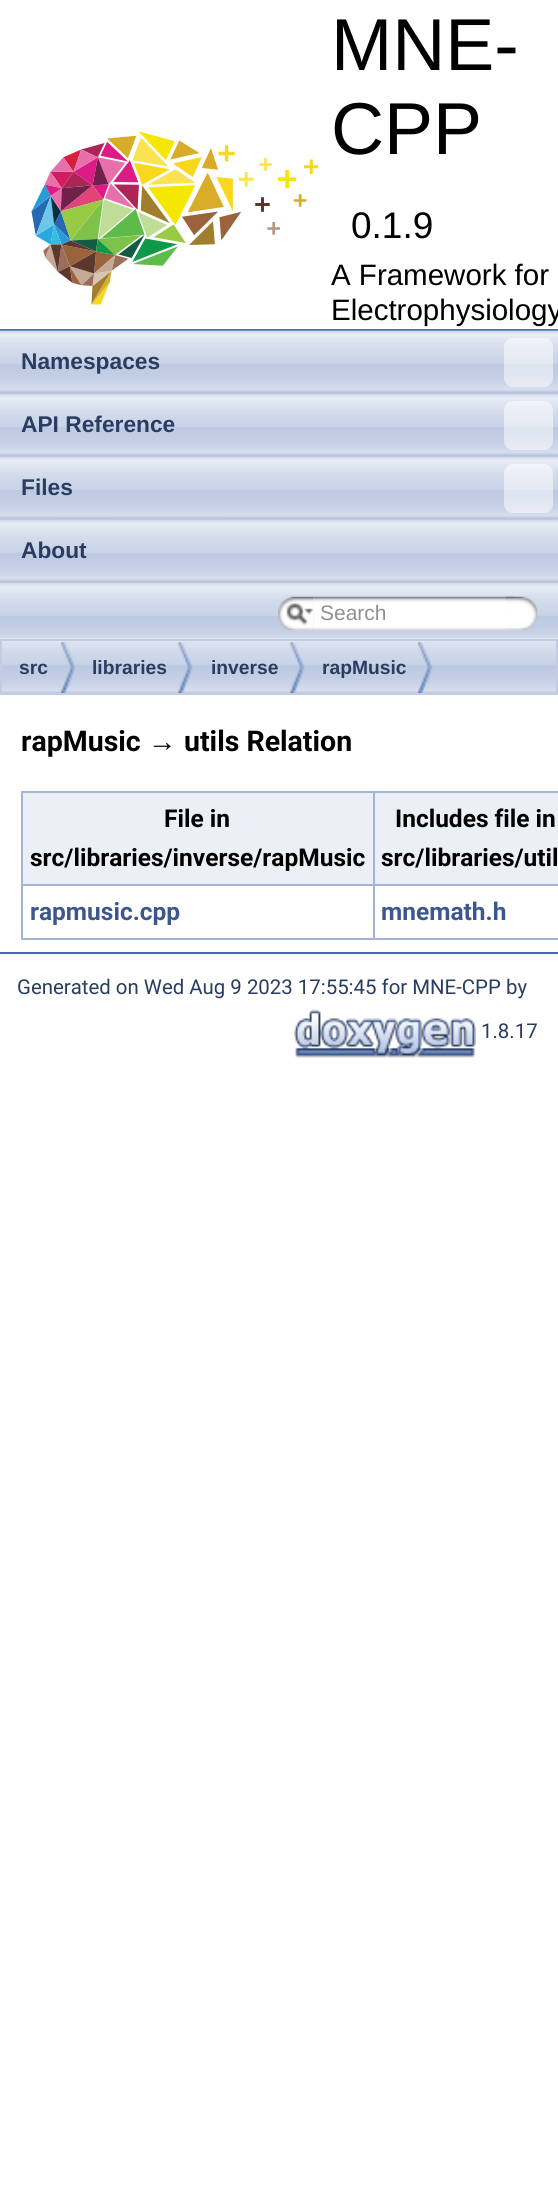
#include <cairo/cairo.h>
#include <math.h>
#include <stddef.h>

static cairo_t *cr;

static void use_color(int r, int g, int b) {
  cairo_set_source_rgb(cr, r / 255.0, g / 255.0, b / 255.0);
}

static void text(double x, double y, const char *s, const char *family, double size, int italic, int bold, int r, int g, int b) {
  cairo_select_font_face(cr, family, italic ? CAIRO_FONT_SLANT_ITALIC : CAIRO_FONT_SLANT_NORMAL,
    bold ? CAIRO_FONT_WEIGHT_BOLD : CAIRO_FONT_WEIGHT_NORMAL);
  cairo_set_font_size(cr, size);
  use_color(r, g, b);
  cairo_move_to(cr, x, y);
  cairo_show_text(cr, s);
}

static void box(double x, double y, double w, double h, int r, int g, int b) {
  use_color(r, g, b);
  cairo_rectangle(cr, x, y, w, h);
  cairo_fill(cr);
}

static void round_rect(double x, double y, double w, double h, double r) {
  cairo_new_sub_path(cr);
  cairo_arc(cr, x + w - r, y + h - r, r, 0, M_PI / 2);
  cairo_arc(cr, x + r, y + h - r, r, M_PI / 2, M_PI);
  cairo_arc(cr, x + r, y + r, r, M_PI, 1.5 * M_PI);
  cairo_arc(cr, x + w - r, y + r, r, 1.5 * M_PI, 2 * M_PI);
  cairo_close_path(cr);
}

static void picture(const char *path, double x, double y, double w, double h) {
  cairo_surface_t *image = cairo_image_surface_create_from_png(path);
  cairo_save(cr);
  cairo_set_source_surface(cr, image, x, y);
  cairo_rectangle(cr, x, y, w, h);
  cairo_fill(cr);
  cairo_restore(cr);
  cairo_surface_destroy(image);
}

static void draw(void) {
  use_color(255, 255, 255);
  cairo_paint(cr);
  box(0, 329, 558, 2, 83, 115, 180);
  picture("img_01.png", 31, 131, 288, 174);
  picture("img_07.png", 0, 638, 558, 55);
  picture("img_02.png", 0, 330, 558, 309);
  cairo_set_source_rgba(cr, 1, 1, 1, 0.5);
  round_rect(504, 338, 49, 49, 9);
  cairo_fill(cr);
  round_rect(504, 401, 49, 49, 9);
  cairo_fill(cr);
  round_rect(504, 464, 49, 49, 9);
  cairo_fill(cr);
  picture("img_03.png", 278, 596, 36, 34);
  picture("img_04.png", 286, 603, 28, 22);
  picture("img_05.png", 313, 596, 202, 34);
  picture("img_06.png", 505, 596, 33, 34);
  cairo_rectangle(cr, 1, 640, 556, 54);
  use_color(194, 205, 228);
  cairo_stroke(cr);
  picture("img_08.png", 61, 642, 15, 51);
  picture("img_09.png", 178, 642, 15, 51);
  picture("img_09.png", 290, 642, 15, 51);
  picture("img_08.png", 418, 642, 15, 51);
  box(21, 791, 537, 2, 163, 180, 215);
  box(21, 938, 537, 2, 163, 180, 215);
  box(21, 791, 2, 149, 163, 180, 215);
  box(23, 793, 350, 91, 235, 239, 246);
  box(375, 793, 183, 91, 235, 239, 246);
  box(21, 884, 537, 2, 163, 180, 215);
  box(373, 791, 2, 149, 163, 180, 215);
  box(0, 952, 558, 2, 74, 106, 170);
  picture("img_10.png", 294, 1009, 182, 49);
  text(331, 70, "MNE-", "Liberation Sans", 73.5, 0, 0, 0, 0, 0);
  text(331, 154, "CPP", "Liberation Sans", 73.5, 0, 0, 0, 0, 0);
  text(351, 238, "0.1.9", "Liberation Sans", 37, 0, 0, 0, 0, 0);
  text(331, 285, "A Framework for", "Liberation Sans", 29.5, 0, 0, 0, 0, 0);
  text(331, 320, "Electrophysiology", "Liberation Sans", 29.5, 0, 0, 0, 0, 0);
  text(21, 369, "Namespaces", "Liberation Sans", 22.75, 0, 1, 42, 61, 97);
  text(21, 432, "API Reference", "Liberation Sans", 22.75, 0, 1, 42, 61, 97);
  text(21, 495, "Files", "Liberation Sans", 22.75, 0, 1, 42, 61, 97);
  text(21, 558, "About", "Liberation Sans", 22.75, 0, 1, 42, 61, 97);
  text(320, 620, "Search", "Liberation Sans", 21, 0, 0, 144, 144, 144);
  text(19, 674, "src", "Liberation Sans", 19.25, 0, 1, 42, 61, 97);
  text(92, 674, "libraries", "Liberation Sans", 19.25, 0, 1, 42, 61, 97);
  text(211, 674, "inverse", "Liberation Sans", 19.25, 0, 1, 42, 61, 97);
  text(322, 674, "rapMusic", "Liberation Sans", 19.25, 0, 1, 42, 61, 97);
  text(21, 751, "rapMusic", "Roboto", 28.5, 0, 1, 0, 0, 0);
  text(148, 751, "→", "Liberation Sans", 28.5, 0, 1, 0, 0, 0);
  text(184, 751, "utils Relation", "Roboto", 28.5, 0, 1, 0, 0, 0);
  text(164, 827, "File in", "Roboto", 24.5, 0, 1, 0, 0, 0);
  text(30, 866, "src/libraries/inverse/rapMusic", "Roboto", 24.5, 0, 1, 0, 0, 0);
  text(395, 827, "Includes file in", "Roboto", 24.5, 0, 1, 0, 0, 0);
  text(381, 866, "src/libraries/util", "Roboto", 24.5, 0, 1, 0, 0, 0);
  text(30, 920, "rapmusic.cpp", "Roboto", 24.5, 0, 1, 61, 87, 140);
  text(381, 920, "mnemath.h", "Roboto", 24.5, 0, 1, 61, 87, 140);
  text(17, 994, "Generated on Wed Aug 9 2023 17:55:45 for MNE-CPP by", "Roboto", 20.4, 0, 0, 42, 61, 97);
  text(481, 1038, "1.8.17", "Roboto", 20.4, 0, 0, 42, 61, 97);
}

int main(void) {
  cairo_surface_t *surface = cairo_image_surface_create(CAIRO_FORMAT_RGB24, 558, 2206);
  cr = cairo_create(surface);
  cairo_font_options_t *options = cairo_font_options_create();
  cairo_font_options_set_hint_metrics(options, CAIRO_HINT_METRICS_OFF);
  cairo_font_options_set_hint_style(options, CAIRO_HINT_STYLE_NONE);
  cairo_set_font_options(cr, options);
  cairo_set_miter_limit(cr, 4);
  draw();
  cairo_surface_write_to_png(surface, "out.png");
  cairo_font_options_destroy(options);
  cairo_destroy(cr);
  cairo_surface_destroy(surface);
  return 0;
}
